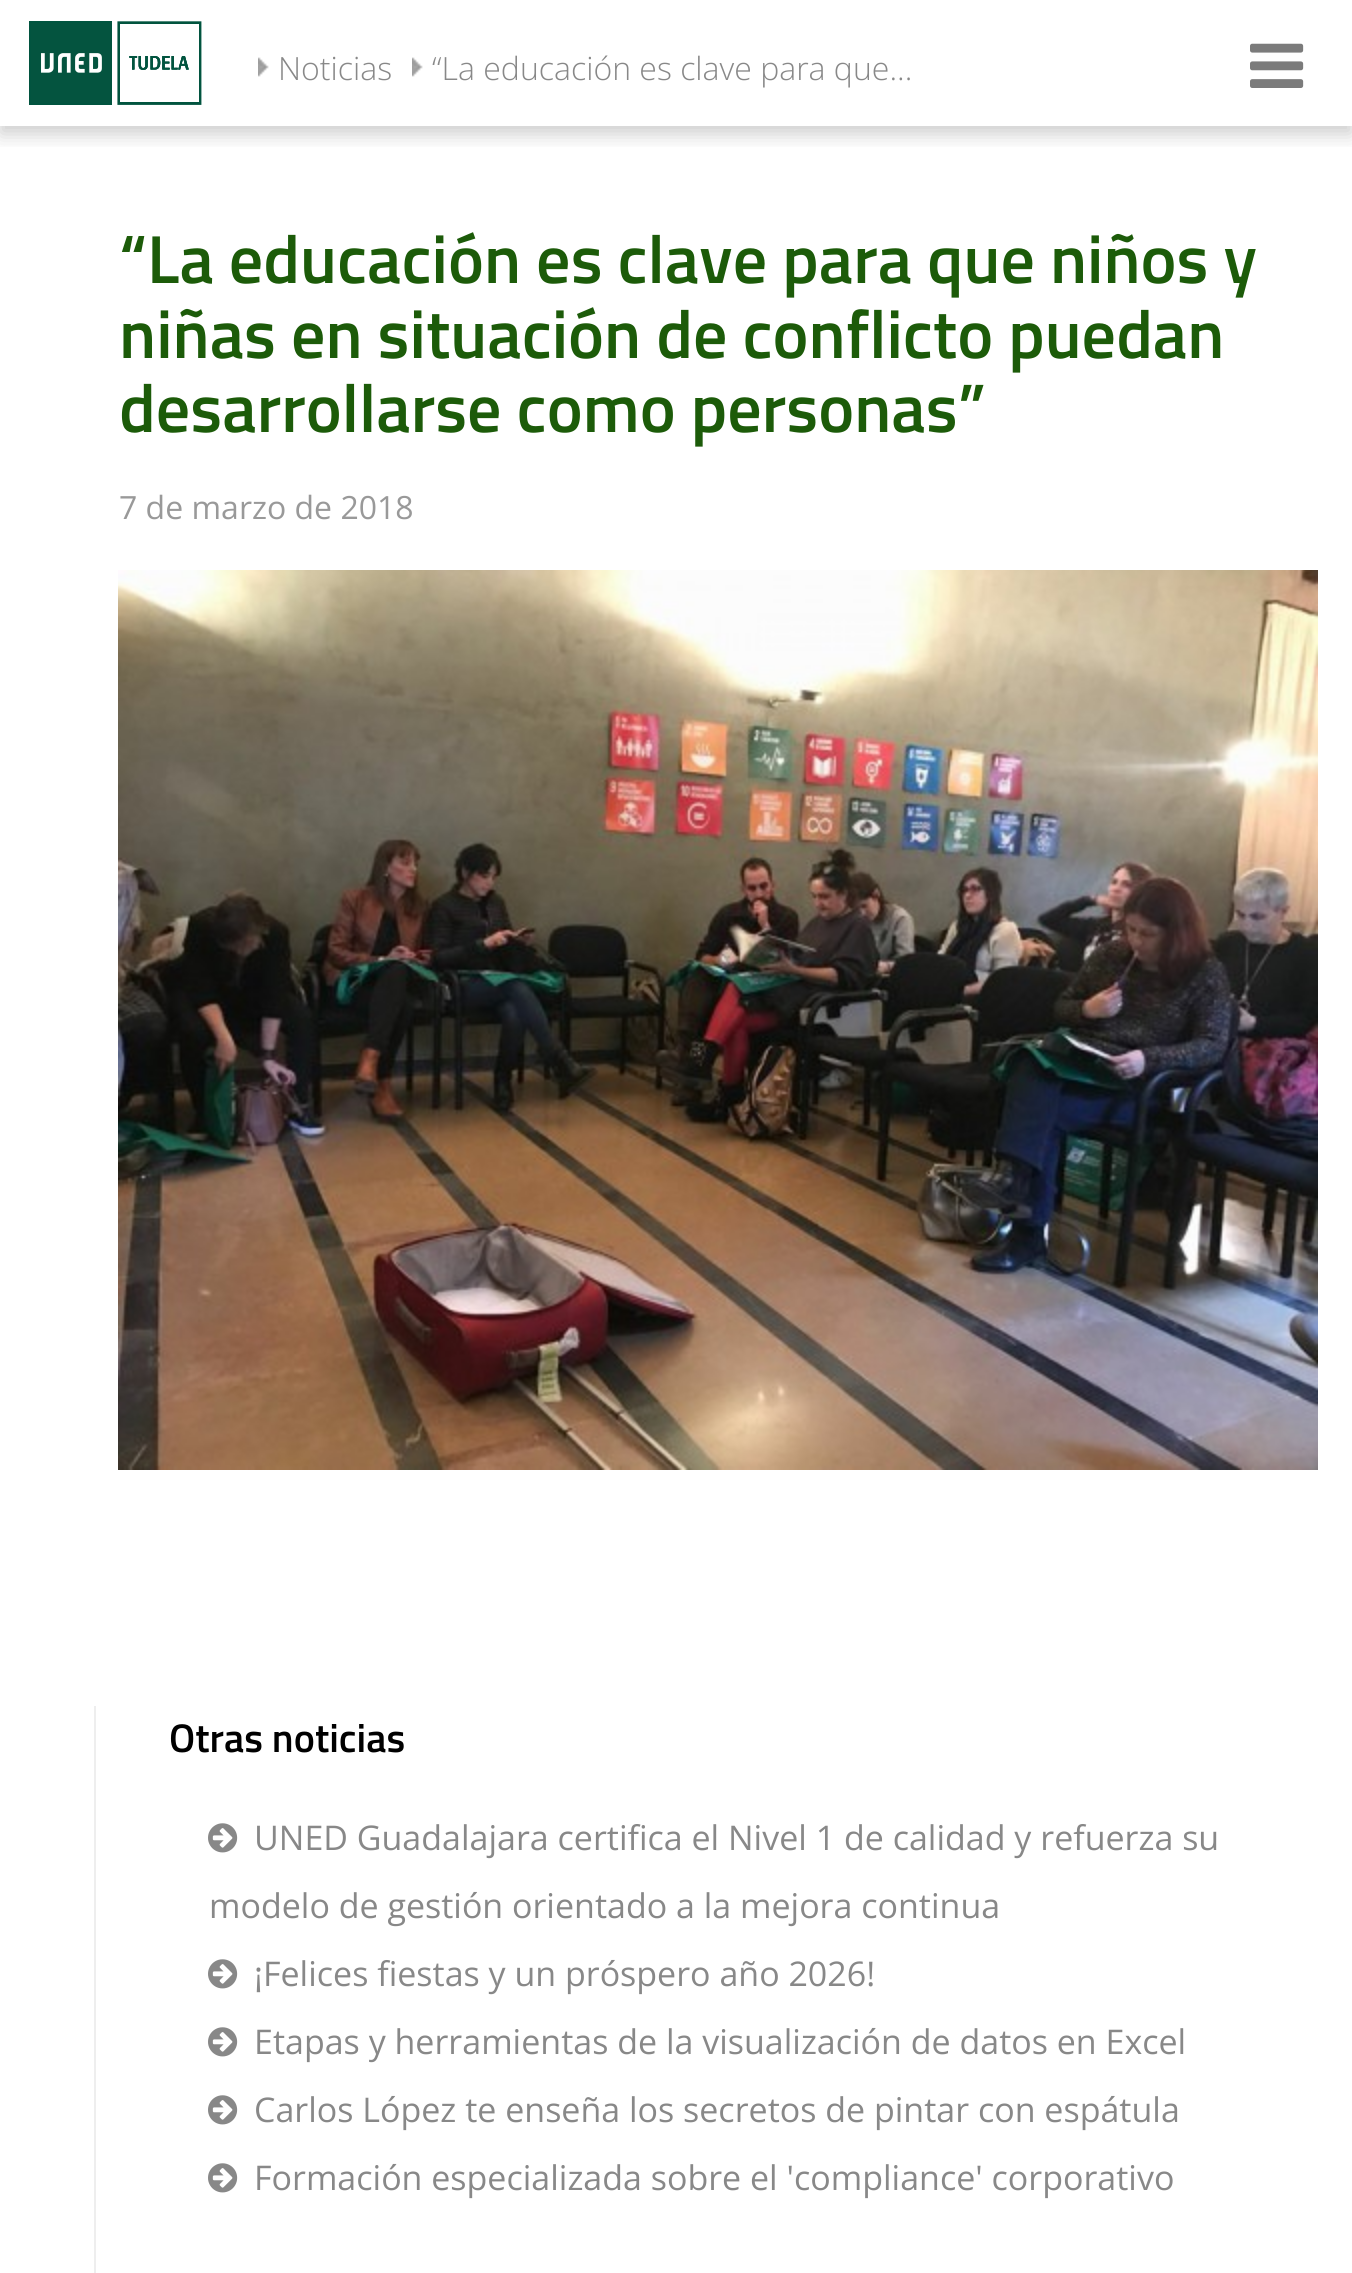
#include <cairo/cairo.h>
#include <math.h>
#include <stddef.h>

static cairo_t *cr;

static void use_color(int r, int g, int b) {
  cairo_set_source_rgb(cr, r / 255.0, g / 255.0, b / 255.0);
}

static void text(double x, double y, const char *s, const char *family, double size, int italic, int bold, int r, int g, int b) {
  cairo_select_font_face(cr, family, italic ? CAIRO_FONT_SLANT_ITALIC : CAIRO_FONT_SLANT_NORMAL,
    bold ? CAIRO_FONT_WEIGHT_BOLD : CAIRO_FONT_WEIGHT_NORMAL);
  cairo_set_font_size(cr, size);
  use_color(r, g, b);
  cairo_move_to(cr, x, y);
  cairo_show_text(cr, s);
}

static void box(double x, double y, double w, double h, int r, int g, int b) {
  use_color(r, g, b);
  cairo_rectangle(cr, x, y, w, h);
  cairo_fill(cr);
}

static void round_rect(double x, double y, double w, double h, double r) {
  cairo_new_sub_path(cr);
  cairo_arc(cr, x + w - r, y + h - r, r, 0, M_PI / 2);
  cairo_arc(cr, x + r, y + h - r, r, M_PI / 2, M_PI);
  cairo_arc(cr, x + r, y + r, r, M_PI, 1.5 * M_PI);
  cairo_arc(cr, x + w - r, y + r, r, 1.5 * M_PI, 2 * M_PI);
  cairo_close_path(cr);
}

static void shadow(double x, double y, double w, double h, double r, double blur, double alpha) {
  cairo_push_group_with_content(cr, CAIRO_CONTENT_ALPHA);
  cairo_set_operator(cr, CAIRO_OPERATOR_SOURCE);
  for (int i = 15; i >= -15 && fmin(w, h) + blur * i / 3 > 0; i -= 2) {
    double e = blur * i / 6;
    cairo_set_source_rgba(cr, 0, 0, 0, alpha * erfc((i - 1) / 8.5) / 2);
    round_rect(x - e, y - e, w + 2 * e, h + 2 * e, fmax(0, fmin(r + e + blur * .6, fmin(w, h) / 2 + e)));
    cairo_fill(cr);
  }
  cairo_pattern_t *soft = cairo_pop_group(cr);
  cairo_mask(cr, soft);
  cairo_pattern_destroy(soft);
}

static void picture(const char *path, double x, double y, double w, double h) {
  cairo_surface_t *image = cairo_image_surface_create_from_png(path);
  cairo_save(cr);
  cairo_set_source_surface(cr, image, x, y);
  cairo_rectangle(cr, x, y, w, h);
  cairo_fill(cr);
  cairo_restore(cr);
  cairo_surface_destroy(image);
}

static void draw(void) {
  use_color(255, 255, 255);
  cairo_paint(cr);
  cairo_save(cr);
  cairo_rectangle(cr, 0, 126, 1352, 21);
  cairo_clip(cr);
  use_color(0, 0, 0);
  shadow(0, 8, 1352, 126, 0, 10, 0.2);
  cairo_restore(cr);
  picture("img_01.png", 29, 21, 173, 84);
  picture("img_02.png", 258, 57, 11, 20);
  picture("img_02.png", 412, 57, 11, 20);
  picture("img_03.png", 1250, 43, 54, 45);
  picture("img_04.png", 118, 570, 1200, 900);
  box(94, 1706, 2, 567, 238, 238, 238);
  picture("img_05.png", 208, 1823, 30, 30);
  picture("img_05.png", 208, 1959, 30, 30);
  picture("img_05.png", 208, 2027, 30, 30);
  picture("img_05.png", 208, 2095, 30, 30);
  picture("img_05.png", 208, 2163, 30, 30);
  text(278, 80, "Noticias", "Open Sans Light", 32, 0, 0, 136, 136, 136);
  text(432, 80, "“La educación es clave para que...", "Open Sans Light", 32, 0, 0, 136, 136, 136);
  text(119, 283, "“La educación es clave para que niños y", "Titillium Web SemiBold", 68, 0, 0, 28, 91, 9);
  text(119, 358, "niñas en situación de conflicto puedan", "Titillium Web SemiBold", 68, 0, 0, 28, 91, 9);
  text(119, 432, "desarrollarse como personas”", "Titillium Web SemiBold", 68, 0, 0, 28, 91, 9);
  text(119, 519, "7 de marzo de 2018", "Open Sans", 32, 0, 0, 153, 153, 153);
  text(169, 1752, "Otras noticias", "Titillium Web SemiBold", 40, 0, 0, 0, 0, 0);
  text(254, 1850, "UNED Guadalajara certifica el Nivel 1 de calidad y refuerza su", "Open Sans", 34, 0, 0, 136, 136, 136);
  text(209, 1918, "modelo de gestión orientado a la mejora continua", "Open Sans", 34, 0, 0, 136, 136, 136);
  text(254, 1986, "¡Felices fiestas y un próspero año 2026!", "Open Sans", 34, 0, 0, 136, 136, 136);
  text(254, 2054, "Etapas y herramientas de la visualización de datos en Excel", "Open Sans", 34, 0, 0, 136, 136, 136);
  text(254, 2122, "Carlos López te enseña los secretos de pintar con espátula", "Open Sans", 34, 0, 0, 136, 136, 136);
  text(254, 2190, "Formación especializada sobre el 'compliance' corporativo", "Open Sans", 34, 0, 0, 136, 136, 136);
}

int main(void) {
  cairo_surface_t *surface = cairo_image_surface_create(CAIRO_FORMAT_RGB24, 1352, 2273);
  cr = cairo_create(surface);
  cairo_font_options_t *options = cairo_font_options_create();
  cairo_font_options_set_hint_metrics(options, CAIRO_HINT_METRICS_OFF);
  cairo_font_options_set_hint_style(options, CAIRO_HINT_STYLE_NONE);
  cairo_set_font_options(cr, options);
  cairo_set_miter_limit(cr, 4);
  draw();
  cairo_surface_write_to_png(surface, "out.png");
  cairo_font_options_destroy(options);
  cairo_destroy(cr);
  cairo_surface_destroy(surface);
  return 0;
}
